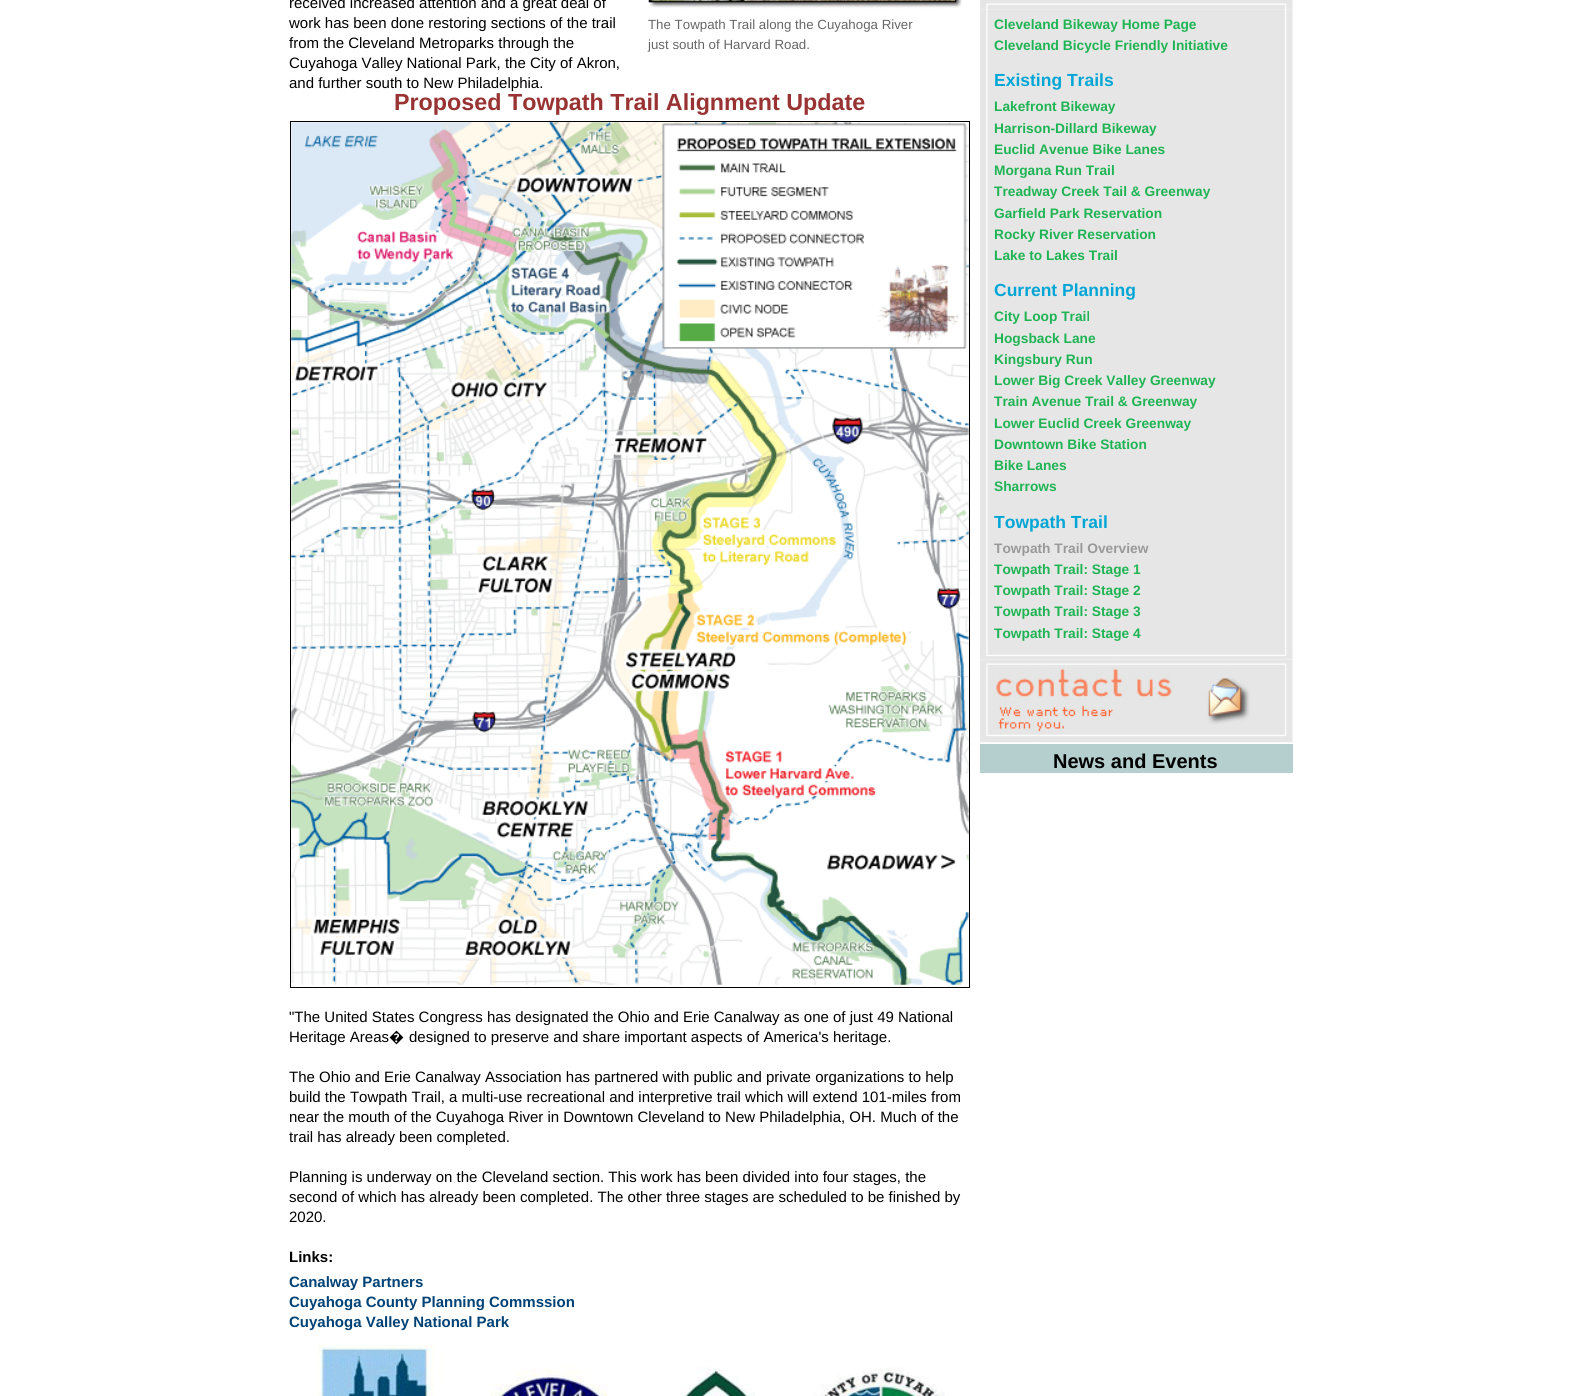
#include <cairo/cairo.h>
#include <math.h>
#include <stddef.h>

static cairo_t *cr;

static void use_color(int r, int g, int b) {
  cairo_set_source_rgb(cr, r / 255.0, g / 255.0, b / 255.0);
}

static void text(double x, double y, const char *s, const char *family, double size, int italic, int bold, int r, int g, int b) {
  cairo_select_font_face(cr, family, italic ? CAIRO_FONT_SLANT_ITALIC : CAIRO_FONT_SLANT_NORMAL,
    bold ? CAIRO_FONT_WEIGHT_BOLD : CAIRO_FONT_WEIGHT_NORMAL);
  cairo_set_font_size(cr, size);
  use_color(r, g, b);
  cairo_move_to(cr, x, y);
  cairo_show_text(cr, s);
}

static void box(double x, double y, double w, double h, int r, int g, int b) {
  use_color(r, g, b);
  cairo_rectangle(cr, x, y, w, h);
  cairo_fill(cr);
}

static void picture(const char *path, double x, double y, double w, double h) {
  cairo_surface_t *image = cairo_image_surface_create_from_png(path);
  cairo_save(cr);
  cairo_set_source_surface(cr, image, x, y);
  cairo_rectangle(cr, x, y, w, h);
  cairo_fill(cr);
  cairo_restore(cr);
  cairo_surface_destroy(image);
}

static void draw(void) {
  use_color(255, 255, 255);
  cairo_paint(cr);
  picture("img_01.png", 648, 0, 314, 9);
  cairo_rectangle(cr, 290.5, 121.5, 679, 866);
  use_color(0, 0, 0);
  cairo_set_line_width(cr, 1);
  cairo_stroke(cr);
  picture("img_02.png", 291, 122, 678, 863);
  picture("img_03.png", 315, 1345, 630, 51);
  picture("img_05.png", 980, 9, 313, 637);
  picture("img_04.png", 980, 0, 313, 10);
  picture("img_06.png", 980, 646, 313, 14);
  picture("img_07.png", 980, 660, 313, 83);
  box(980, 744, 313, 29, 180, 207, 206);
  text(289, 8, "received increased attention and a great deal of", "Liberation Sans", 15, 0, 0, 0, 0, 0);
  text(289, 28, "work has been done restoring sections of the trail", "Liberation Sans", 15, 0, 0, 0, 0, 0);
  text(289, 48, "from the Cleveland Metroparks through the", "Liberation Sans", 15, 0, 0, 0, 0, 0);
  text(289, 68, "Cuyahoga Valley National Park, the City of Akron,", "Liberation Sans", 15, 0, 0, 0, 0, 0);
  text(289, 88, "and further south to New Philadelphia.", "Liberation Sans", 15, 0, 0, 0, 0, 0);
  text(648, 29, "The Towpath Trail along the Cuyahoga River", "Liberation Sans", 13.3, 0, 0, 102, 102, 102);
  text(648, 49, "just south of Harvard Road.", "Liberation Sans", 13.3, 0, 0, 102, 102, 102);
  text(394, 110, "Proposed Towpath Trail Alignment Update", "Liberation Sans", 23.3, 0, 1, 153, 51, 51);
  text(289, 1022, "\"The United States Congress has designated the Ohio and Erie Canalway as one of just 49 National", "Liberation Sans", 15, 0, 0, 0, 0, 0);
  text(289, 1042, "Heritage Areas", "Liberation Sans", 15, 0, 0, 0, 0, 0);
  text(389, 1042, "�", "Noto Sans", 15, 0, 0, 0, 0, 0);
  text(409, 1042, "designed to preserve and share important aspects of America's heritage.", "Liberation Sans", 15, 0, 0, 0, 0, 0);
  text(289, 1082, "The Ohio and Erie Canalway Association has partnered with public and private organizations to help", "Liberation Sans", 15, 0, 0, 0, 0, 0);
  text(289, 1102, "build the Towpath Trail, a multi-use recreational and interpretive trail which will extend 101-miles from", "Liberation Sans", 15, 0, 0, 0, 0, 0);
  text(289, 1122, "near the mouth of the Cuyahoga River in Downtown Cleveland to New Philadelphia, OH. Much of the", "Liberation Sans", 15, 0, 0, 0, 0, 0);
  text(289, 1142, "trail has already been completed.", "Liberation Sans", 15, 0, 0, 0, 0, 0);
  text(289, 1182, "Planning is underway on the Cleveland section. This work has been divided into four stages, the", "Liberation Sans", 15, 0, 0, 0, 0, 0);
  text(289, 1202, "second of which has already been completed. The other three stages are scheduled to be finished by", "Liberation Sans", 15, 0, 0, 0, 0, 0);
  text(289, 1222, "2020.", "Liberation Sans", 15, 0, 0, 0, 0, 0);
  text(289, 1262, "Links:", "Liberation Sans", 15, 0, 1, 0, 0, 0);
  text(289, 1287, "Canalway Partners", "Liberation Sans", 15, 0, 1, 0, 66, 118);
  text(289, 1307, "Cuyahoga County Planning Commssion", "Liberation Sans", 15, 0, 1, 0, 66, 118);
  text(289, 1327, "Cuyahoga Valley National Park", "Liberation Sans", 15, 0, 1, 0, 66, 118);
  text(994, 29, "Cleveland Bikeway Home Page", "Liberation Sans", 13.75, 0, 1, 31, 180, 83);
  text(994, 50, "Cleveland Bicycle Friendly Initiative", "Liberation Sans", 13.75, 0, 1, 31, 180, 83);
  text(994, 86, "Existing Trails", "Liberation Sans", 17.5, 0, 1, 1, 166, 214);
  text(994, 111, "Lakefront Bikeway", "Liberation Sans", 13.75, 0, 1, 31, 180, 83);
  text(994, 133, "Harrison-Dillard Bikeway", "Liberation Sans", 13.75, 0, 1, 31, 180, 83);
  text(994, 154, "Euclid Avenue Bike Lanes", "Liberation Sans", 13.75, 0, 1, 31, 180, 83);
  text(994, 175, "Morgana Run Trail", "Liberation Sans", 13.75, 0, 1, 31, 180, 83);
  text(994, 196, "Treadway Creek Tail & Greenway", "Liberation Sans", 13.75, 0, 1, 31, 180, 83);
  text(994, 218, "Garfield Park Reservation", "Liberation Sans", 13.75, 0, 1, 31, 180, 83);
  text(994, 239, "Rocky River Reservation", "Liberation Sans", 13.75, 0, 1, 31, 180, 83);
  text(994, 260, "Lake to Lakes Trail", "Liberation Sans", 13.75, 0, 1, 31, 180, 83);
  text(994, 296, "Current Planning", "Liberation Sans", 17.5, 0, 1, 1, 166, 214);
  text(994, 321, "City Loop Trail", "Liberation Sans", 13.75, 0, 1, 31, 180, 83);
  text(994, 343, "Hogsback Lane", "Liberation Sans", 13.75, 0, 1, 31, 180, 83);
  text(994, 364, "Kingsbury Run", "Liberation Sans", 13.75, 0, 1, 31, 180, 83);
  text(994, 385, "Lower Big Creek Valley Greenway", "Liberation Sans", 13.75, 0, 1, 31, 180, 83);
  text(994, 406, "Train Avenue Trail & Greenway", "Liberation Sans", 13.75, 0, 1, 31, 180, 83);
  text(994, 428, "Lower Euclid Creek Greenway", "Liberation Sans", 13.75, 0, 1, 31, 180, 83);
  text(994, 449, "Downtown Bike Station", "Liberation Sans", 13.75, 0, 1, 31, 180, 83);
  text(994, 470, "Bike Lanes", "Liberation Sans", 13.75, 0, 1, 31, 180, 83);
  text(994, 491, "Sharrows", "Liberation Sans", 13.75, 0, 1, 31, 180, 83);
  text(994, 528, "Towpath Trail", "Liberation Sans", 17.5, 0, 1, 1, 166, 214);
  text(994, 553, "Towpath Trail Overview", "Liberation Sans", 13.75, 0, 1, 153, 153, 153);
  text(994, 574, "Towpath Trail: Stage 1", "Liberation Sans", 13.75, 0, 1, 31, 180, 83);
  text(994, 595, "Towpath Trail: Stage 2", "Liberation Sans", 13.75, 0, 1, 31, 180, 83);
  text(994, 616, "Towpath Trail: Stage 3", "Liberation Sans", 13.75, 0, 1, 31, 180, 83);
  text(994, 638, "Towpath Trail: Stage 4", "Liberation Sans", 13.75, 0, 1, 31, 180, 83);
  text(1053, 768, "News and Events", "Liberation Sans", 20, 0, 1, 0, 0, 0);
}

int main(void) {
  cairo_surface_t *surface = cairo_image_surface_create(CAIRO_FORMAT_RGB24, 1578, 1396);
  cr = cairo_create(surface);
  cairo_font_options_t *options = cairo_font_options_create();
  cairo_font_options_set_hint_metrics(options, CAIRO_HINT_METRICS_OFF);
  cairo_font_options_set_hint_style(options, CAIRO_HINT_STYLE_NONE);
  cairo_set_font_options(cr, options);
  cairo_set_miter_limit(cr, 4);
  draw();
  cairo_surface_write_to_png(surface, "out.png");
  cairo_font_options_destroy(options);
  cairo_destroy(cr);
  cairo_surface_destroy(surface);
  return 0;
}
